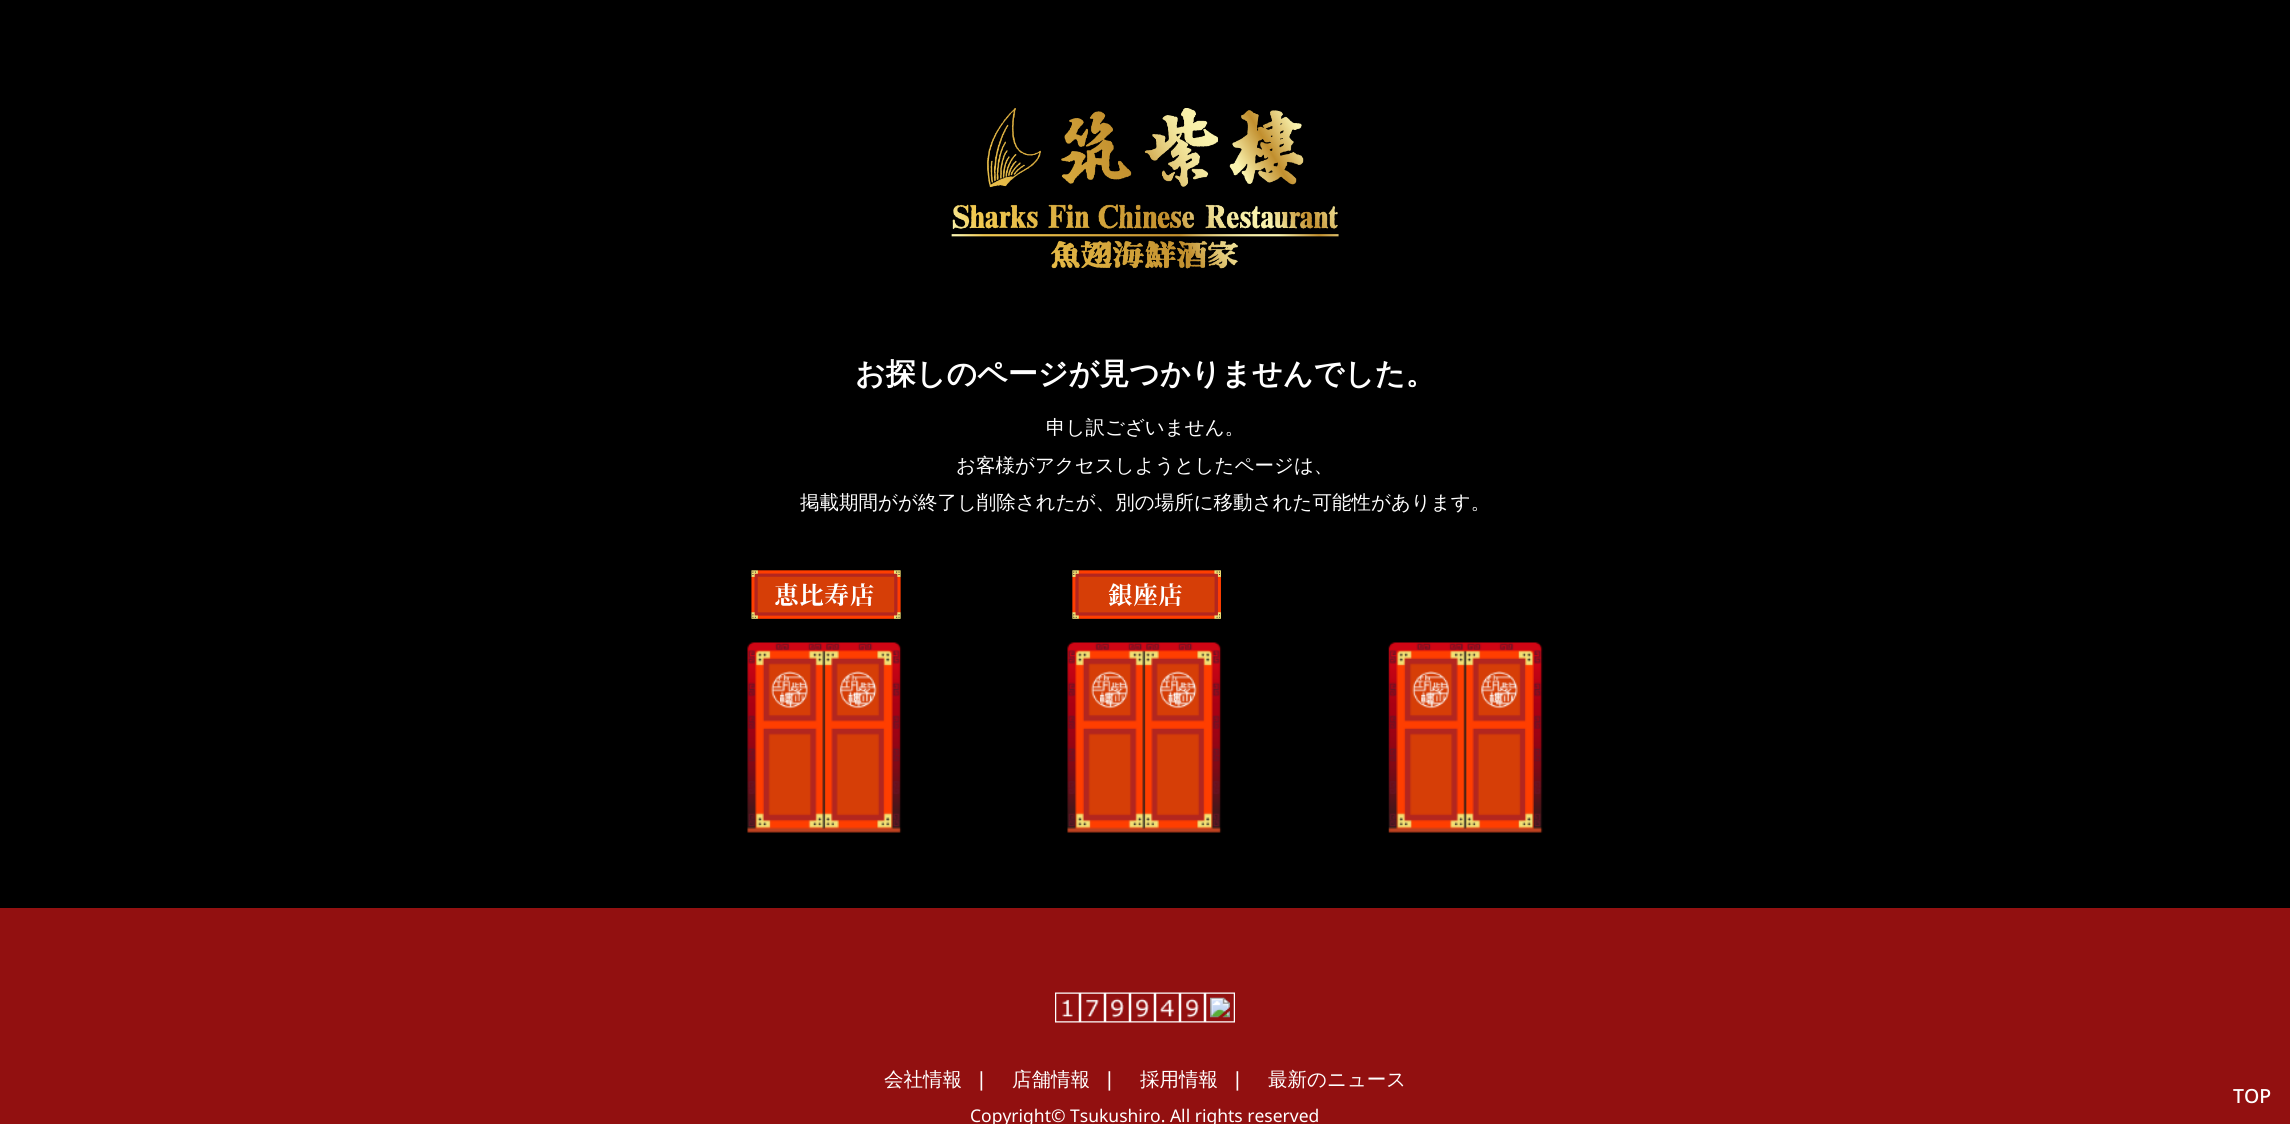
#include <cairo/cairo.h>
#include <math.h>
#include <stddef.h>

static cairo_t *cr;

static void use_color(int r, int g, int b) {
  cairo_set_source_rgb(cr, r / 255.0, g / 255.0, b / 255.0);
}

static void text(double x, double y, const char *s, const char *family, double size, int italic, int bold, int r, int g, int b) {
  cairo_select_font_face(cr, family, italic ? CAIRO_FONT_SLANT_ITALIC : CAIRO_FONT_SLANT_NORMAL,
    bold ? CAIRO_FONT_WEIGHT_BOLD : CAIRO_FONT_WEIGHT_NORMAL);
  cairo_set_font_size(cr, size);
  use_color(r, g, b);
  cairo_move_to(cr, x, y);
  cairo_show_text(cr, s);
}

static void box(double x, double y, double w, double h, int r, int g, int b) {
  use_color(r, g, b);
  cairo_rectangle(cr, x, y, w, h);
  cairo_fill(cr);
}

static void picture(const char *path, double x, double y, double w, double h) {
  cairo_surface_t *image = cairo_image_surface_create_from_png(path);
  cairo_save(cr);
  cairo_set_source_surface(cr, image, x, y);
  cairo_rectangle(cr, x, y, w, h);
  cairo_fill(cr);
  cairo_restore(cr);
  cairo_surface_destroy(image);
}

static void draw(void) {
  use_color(0, 0, 0);
  cairo_paint(cr);
  picture("img_01.png", 951, 108, 388, 161);
  picture("img_02.png", 751, 570, 150, 49);
  picture("img_03.png", 747, 642, 155, 191);
  picture("img_04.png", 1072, 570, 149, 49);
  picture("img_05.png", 1067, 642, 155, 191);
  picture("img_06.png", 1388, 642, 155, 191);
  box(0, 908, 2290, 216, 146, 16, 16);
  picture("img_07.png", 1055, 992, 180, 31);
  text(855, 384, "お探しのページが見つかりませんでした。", "WenQuanYi Zen Hei", 30, 0, 1, 255, 255, 255);
  text(1046, 434, "申し訳ございません。", "WenQuanYi Zen Hei Medium", 19.5, 0, 0, 255, 255, 255);
  text(956, 472, "お客様がアクセスしようとしたページは、", "WenQuanYi Zen Hei Medium", 19.5, 0, 0, 255, 255, 255);
  text(800, 509, "掲載期間がが終了し削除されたが、別の場所に移動された可能性があります。", "WenQuanYi Zen Hei Medium", 19.5, 0, 0, 255, 255, 255);
  text(884, 1086, "会社情報", "WenQuanYi Zen Hei Medium", 19.5, 0, 0, 255, 255, 255);
  text(976, 1086, "|", "Noto Sans Medium", 19.5, 0, 0, 255, 255, 255);
  text(1012, 1086, "店舗情報", "WenQuanYi Zen Hei Medium", 19.5, 0, 0, 255, 255, 255);
  text(1104, 1086, "|", "Noto Sans Medium", 19.5, 0, 0, 255, 255, 255);
  text(1140, 1086, "採用情報", "WenQuanYi Zen Hei Medium", 19.5, 0, 0, 255, 255, 255);
  text(1232, 1086, "|", "Noto Sans Medium", 19.5, 0, 0, 255, 255, 255);
  text(1268, 1086, "最新のニュース", "WenQuanYi Zen Hei Medium", 19.5, 0, 0, 255, 255, 255);
  text(970, 1122, "Copyright© Tsukushiro. All rights reserved", "Noto Sans", 17.5, 0, 0, 255, 255, 255);
  text(2233, 1103, "TOP", "Noto Sans Medium", 19.5, 0, 0, 255, 255, 255);
}

int main(void) {
  cairo_surface_t *surface = cairo_image_surface_create(CAIRO_FORMAT_RGB24, 2290, 1124);
  cr = cairo_create(surface);
  cairo_font_options_t *options = cairo_font_options_create();
  cairo_font_options_set_hint_metrics(options, CAIRO_HINT_METRICS_OFF);
  cairo_font_options_set_hint_style(options, CAIRO_HINT_STYLE_NONE);
  cairo_set_font_options(cr, options);
  cairo_set_miter_limit(cr, 4);
  draw();
  cairo_surface_write_to_png(surface, "out.png");
  cairo_font_options_destroy(options);
  cairo_destroy(cr);
  cairo_surface_destroy(surface);
  return 0;
}
